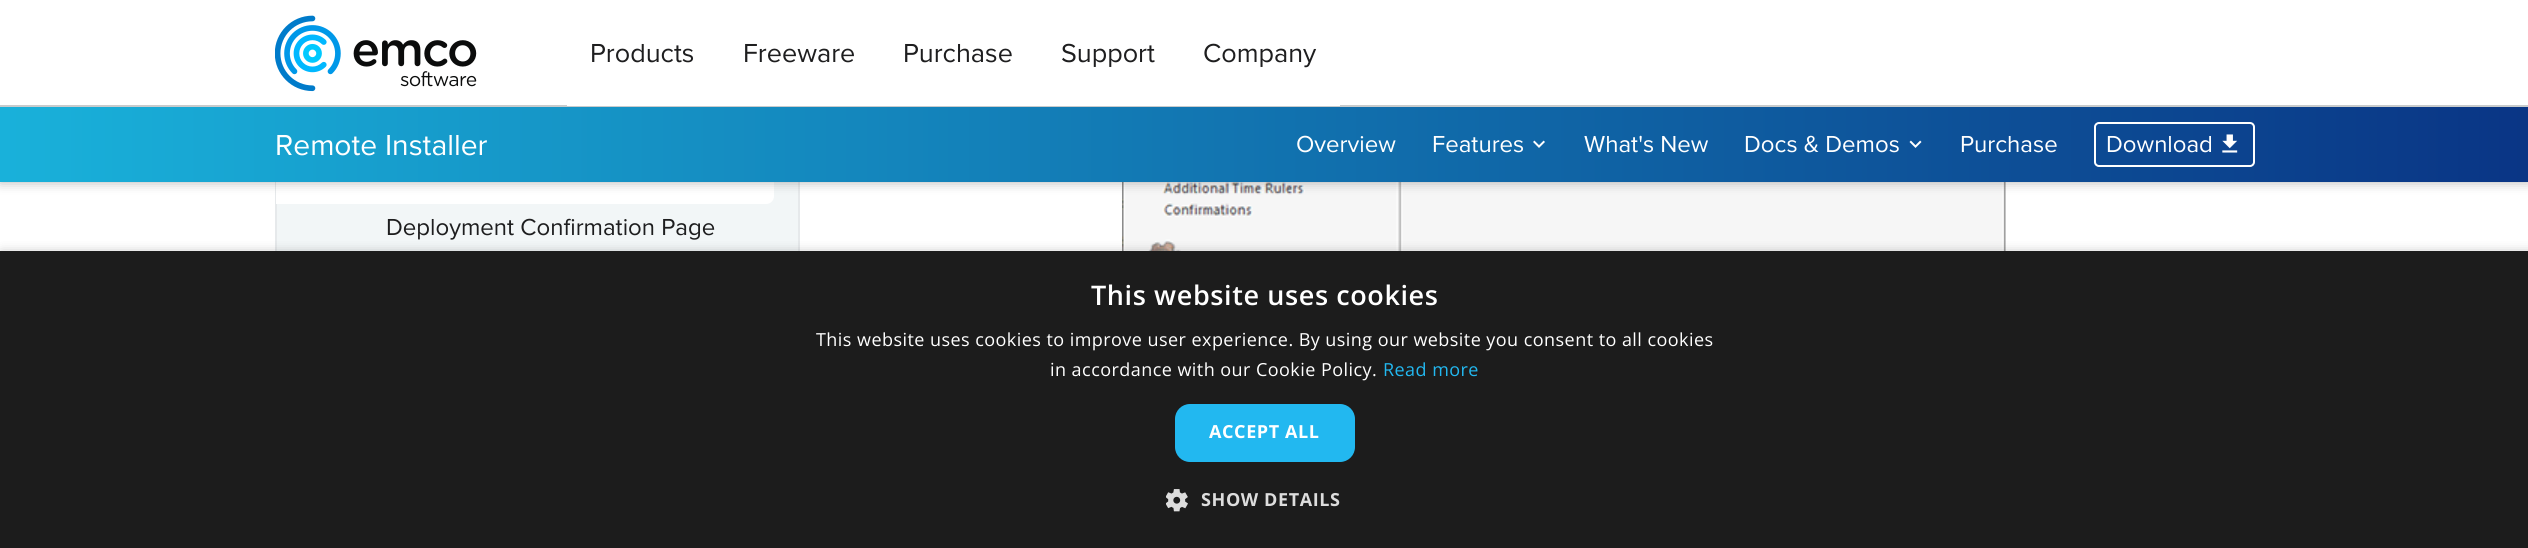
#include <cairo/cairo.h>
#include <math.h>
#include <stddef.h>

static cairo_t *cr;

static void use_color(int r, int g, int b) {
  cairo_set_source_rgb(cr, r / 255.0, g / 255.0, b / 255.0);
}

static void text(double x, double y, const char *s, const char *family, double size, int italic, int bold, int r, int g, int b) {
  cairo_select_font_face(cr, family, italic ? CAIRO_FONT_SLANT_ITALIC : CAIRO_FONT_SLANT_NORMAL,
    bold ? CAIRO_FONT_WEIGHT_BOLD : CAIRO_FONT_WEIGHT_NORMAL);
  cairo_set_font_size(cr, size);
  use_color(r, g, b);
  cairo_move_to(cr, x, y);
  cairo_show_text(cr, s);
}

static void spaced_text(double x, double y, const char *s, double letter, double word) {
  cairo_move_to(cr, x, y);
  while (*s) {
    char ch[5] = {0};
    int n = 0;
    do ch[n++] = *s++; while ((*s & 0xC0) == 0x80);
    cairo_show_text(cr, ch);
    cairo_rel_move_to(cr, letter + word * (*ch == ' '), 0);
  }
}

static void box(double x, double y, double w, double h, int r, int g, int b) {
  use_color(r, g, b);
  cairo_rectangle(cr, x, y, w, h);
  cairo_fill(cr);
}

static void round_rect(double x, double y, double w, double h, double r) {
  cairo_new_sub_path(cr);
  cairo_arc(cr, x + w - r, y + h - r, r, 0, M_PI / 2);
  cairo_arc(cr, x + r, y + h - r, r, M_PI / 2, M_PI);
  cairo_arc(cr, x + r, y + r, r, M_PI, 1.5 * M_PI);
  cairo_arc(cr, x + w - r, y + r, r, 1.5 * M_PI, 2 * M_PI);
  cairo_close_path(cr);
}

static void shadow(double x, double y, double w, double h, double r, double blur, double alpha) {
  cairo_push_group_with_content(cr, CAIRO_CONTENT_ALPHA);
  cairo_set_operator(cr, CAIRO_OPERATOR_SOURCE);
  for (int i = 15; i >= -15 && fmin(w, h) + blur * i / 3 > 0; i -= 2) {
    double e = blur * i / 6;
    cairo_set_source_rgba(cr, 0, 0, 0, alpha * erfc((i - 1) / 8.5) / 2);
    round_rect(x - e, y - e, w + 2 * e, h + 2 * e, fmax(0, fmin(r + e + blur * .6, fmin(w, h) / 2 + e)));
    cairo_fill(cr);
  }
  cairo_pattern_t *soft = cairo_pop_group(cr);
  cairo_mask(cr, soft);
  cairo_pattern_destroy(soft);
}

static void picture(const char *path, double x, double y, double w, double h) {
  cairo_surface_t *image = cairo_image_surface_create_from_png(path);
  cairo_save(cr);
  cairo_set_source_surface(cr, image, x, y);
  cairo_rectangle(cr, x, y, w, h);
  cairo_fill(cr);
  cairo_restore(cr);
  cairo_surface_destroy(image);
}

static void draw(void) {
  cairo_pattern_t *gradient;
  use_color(255, 255, 255);
  cairo_paint(cr);
  box(277, 182, 521, 69, 242, 246, 247);
  cairo_rectangle(cr, 276, -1, 523, 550);
  use_color(230, 233, 235);
  cairo_stroke(cr);
  use_color(255, 255, 255);
  cairo_new_path(cr);
  cairo_move_to(cr, 276, 156);
  cairo_line_to(cr, 766, 156);
  cairo_curve_to(cr, 770.5, 156, 774, 159.5, 774, 164);
  cairo_line_to(cr, 774, 196);
  cairo_curve_to(cr, 774, 200.5, 770.5, 204, 766, 204);
  cairo_line_to(cr, 276, 204);
  cairo_close_path(cr);
  cairo_fill(cr);
  picture("img_05.png", 1122, 182, 884, 69);
  use_color(0, 0, 0);
  shadow(0, 0, 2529, 182, 0, 6, 0.3);
  box(0, 0, 2528, 105, 255, 255, 255);
  box(0, 105, 2528, 2, 200, 203, 204);
  picture("img_01.png", 275, 15, 202, 77);
  box(567, 105, 773, 1, 255, 255, 255);
  gradient = cairo_pattern_create_linear(0, 144, 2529, 144);
  cairo_pattern_add_color_stop_rgba(gradient, 0, 0.098, 0.694, 0.855, 1);
  cairo_pattern_add_color_stop_rgba(gradient, 1, 0.039, 0.208, 0.522, 1);
  cairo_set_source(cr, gradient);
  cairo_pattern_destroy(gradient);
  cairo_rectangle(cr, 0, 107, 2528, 75);
  cairo_fill(cr);
  picture("img_02.png", 1533, 140, 12, 8);
  picture("img_03.png", 1909, 140, 13, 8);
  round_rect(2095, 123, 159, 43, 4);
  use_color(255, 255, 255);
  cairo_stroke(cr);
  picture("img_04.png", 2222, 134, 16, 19);
  use_color(0, 0, 0);
  shadow(2, 254, 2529, 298, 0, 6, 0.35);
  box(0, 251, 2528, 297, 28, 28, 28);
  use_color(34, 184, 240);
  round_rect(1175, 404, 180, 58, 15);
  cairo_fill(cr);
  picture("img_06.png", 1166, 489, 22, 23);
  text(590, 62, "Products", "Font", 27, 0, 0, 30, 30, 31);
  text(743, 62, "Freeware", "Font", 27, 0, 0, 30, 30, 31);
  text(903, 62, "Purchase", "Font", 27, 0, 0, 30, 30, 31);
  text(1061, 62, "Support", "Font", 27, 0, 0, 30, 30, 31);
  text(1203, 62, "Company", "Font", 27, 0, 0, 30, 30, 31);
  text(275, 155, "Remote Installer", "Font", 30, 0, 0, 255, 255, 255);
  text(1296, 152, "Overview", "Font", 24, 0, 0, 255, 255, 255);
  text(1432, 152, "Features", "Font", 24, 0, 0, 255, 255, 255);
  text(1584, 152, "What's New", "Font", 24, 0, 0, 255, 255, 255);
  text(1744, 152, "Docs & Demos", "Font", 24, 0, 0, 255, 255, 255);
  text(1960, 152, "Purchase", "Font", 24, 0, 0, 255, 255, 255);
  text(2106, 152, "Download", "Font", 24, 0, 0, 255, 255, 255);
  text(386, 235, "Deployment Confirmation Page", "Font", 24, 0, 0, 30, 30, 31);
  cairo_select_font_face(cr, "Open Sans SemiBold", CAIRO_FONT_SLANT_NORMAL, CAIRO_FONT_WEIGHT_NORMAL);
  cairo_set_font_size(cr, 27);
  use_color(255, 255, 255);
  spaced_text(1091, 305, "This website uses cookies", 0.6, 0);
  cairo_select_font_face(cr, "Open Sans", CAIRO_FONT_SLANT_NORMAL, CAIRO_FONT_WEIGHT_NORMAL);
  cairo_set_font_size(cr, 18);
  spaced_text(816, 346, "This website uses cookies to improve user experience. By using our website you consent to all cookies", 0.45, 0);
  spaced_text(1050, 376, "in accordance with our Cookie Policy.", 0.45, 0);
  use_color(34, 184, 240);
  spaced_text(1383, 376, "Read more", 0.45, 0);
  cairo_select_font_face(cr, "Open Sans", CAIRO_FONT_SLANT_NORMAL, CAIRO_FONT_WEIGHT_BOLD);
  use_color(255, 255, 255);
  spaced_text(1209, 438, "ACCEPT ALL", 0.6, 0);
  use_color(221, 221, 221);
  spaced_text(1201, 506, "SHOW DETAILS", 0.6, 0);
}

int main(void) {
  cairo_surface_t *surface = cairo_image_surface_create(CAIRO_FORMAT_RGB24, 2528, 548);
  cr = cairo_create(surface);
  cairo_font_options_t *options = cairo_font_options_create();
  cairo_font_options_set_hint_metrics(options, CAIRO_HINT_METRICS_OFF);
  cairo_font_options_set_hint_style(options, CAIRO_HINT_STYLE_NONE);
  cairo_set_font_options(cr, options);
  cairo_set_miter_limit(cr, 4);
  draw();
  cairo_surface_write_to_png(surface, "out.png");
  cairo_font_options_destroy(options);
  cairo_destroy(cr);
  cairo_surface_destroy(surface);
  return 0;
}
